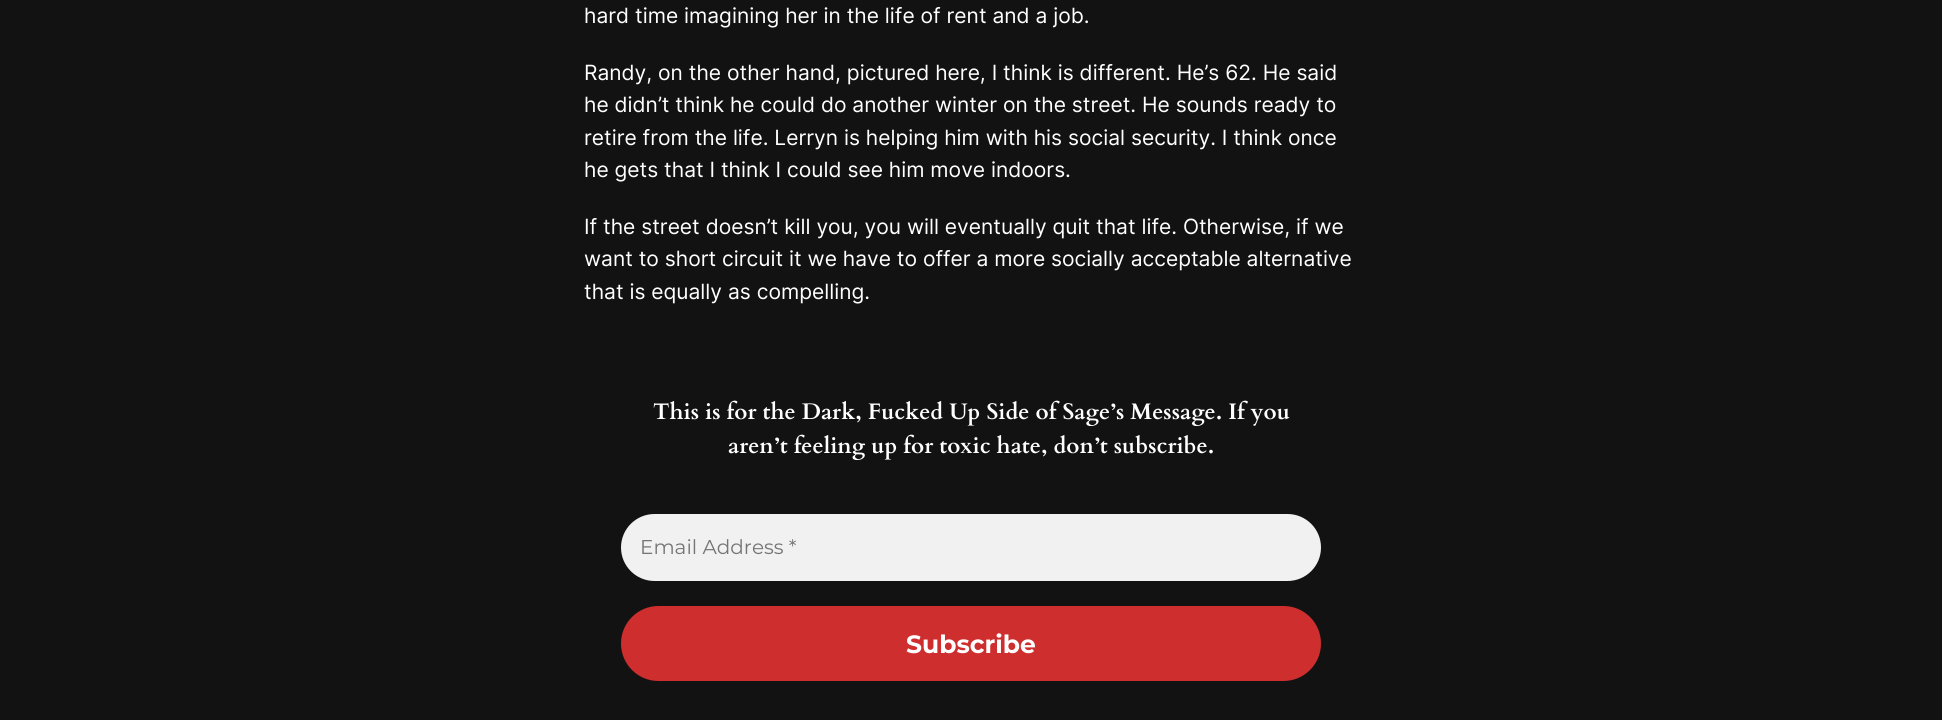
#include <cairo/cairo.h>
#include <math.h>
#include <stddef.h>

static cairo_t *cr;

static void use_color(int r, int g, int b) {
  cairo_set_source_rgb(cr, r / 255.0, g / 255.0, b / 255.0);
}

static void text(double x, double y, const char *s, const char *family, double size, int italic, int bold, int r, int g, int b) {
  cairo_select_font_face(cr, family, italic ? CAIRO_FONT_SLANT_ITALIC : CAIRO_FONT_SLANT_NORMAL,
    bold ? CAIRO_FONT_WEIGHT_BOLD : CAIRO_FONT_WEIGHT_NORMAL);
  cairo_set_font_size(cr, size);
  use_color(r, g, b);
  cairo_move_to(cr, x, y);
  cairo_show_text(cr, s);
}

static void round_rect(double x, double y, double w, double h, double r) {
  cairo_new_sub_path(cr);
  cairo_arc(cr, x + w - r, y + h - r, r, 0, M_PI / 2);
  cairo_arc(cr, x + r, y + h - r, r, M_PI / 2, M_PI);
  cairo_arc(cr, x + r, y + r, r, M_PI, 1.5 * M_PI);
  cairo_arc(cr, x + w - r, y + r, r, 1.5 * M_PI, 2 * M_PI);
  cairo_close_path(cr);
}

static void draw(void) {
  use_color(18, 18, 18);
  cairo_paint(cr);
  use_color(241, 241, 241);
  round_rect(621, 514, 700, 67, 33.5);
  cairo_fill(cr);
  use_color(207, 46, 46);
  round_rect(621, 606, 700, 75, 37.5);
  cairo_fill(cr);
  text(584, 23, "hard time imagining her in the life of rent and a job.", "Inter", 21, 0, 0, 255, 255, 255);
  text(584, 80, "Randy, on the other hand, pictured here, I think is different. He’s 62. He said", "Inter", 21, 0, 0, 255, 255, 255);
  text(584, 112, "he didn’t think he could do another winter on the street. He sounds ready to", "Inter", 21, 0, 0, 255, 255, 255);
  text(584, 145, "retire from the life. Lerryn is helping him with his social security. I think once", "Inter", 21, 0, 0, 255, 255, 255);
  text(584, 177, "he gets that I think I could see him move indoors.", "Inter", 21, 0, 0, 255, 255, 255);
  text(584, 234, "If the street doesn’t kill you, you will eventually quit that life. Otherwise, if we", "Inter", 21, 0, 0, 255, 255, 255);
  text(584, 266, "want to short circuit it we have to offer a more socially acceptable alternative", "Inter", 21, 0, 0, 255, 255, 255);
  text(584, 299, "that is equally as compelling.", "Inter", 21, 0, 0, 255, 255, 255);
  text(653, 419, "This is for the Dark, Fucked Up Side of Sage’s Message. If you", "Cardo", 22.5, 0, 1, 255, 255, 255);
  text(728, 453, "aren’t feeling up for toxic hate, don’t subscribe.", "Cardo", 22.5, 0, 1, 255, 255, 255);
  text(640, 554, "Email Address *", "Montserrat", 20, 0, 0, 117, 117, 117);
  text(906, 653, "Subscribe", "Montserrat", 25, 0, 1, 255, 255, 255);
}

int main(void) {
  cairo_surface_t *surface = cairo_image_surface_create(CAIRO_FORMAT_RGB24, 1942, 720);
  cr = cairo_create(surface);
  cairo_font_options_t *options = cairo_font_options_create();
  cairo_font_options_set_hint_metrics(options, CAIRO_HINT_METRICS_OFF);
  cairo_font_options_set_hint_style(options, CAIRO_HINT_STYLE_NONE);
  cairo_set_font_options(cr, options);
  cairo_set_miter_limit(cr, 4);
  draw();
  cairo_surface_write_to_png(surface, "out.png");
  cairo_font_options_destroy(options);
  cairo_destroy(cr);
  cairo_surface_destroy(surface);
  return 0;
}
